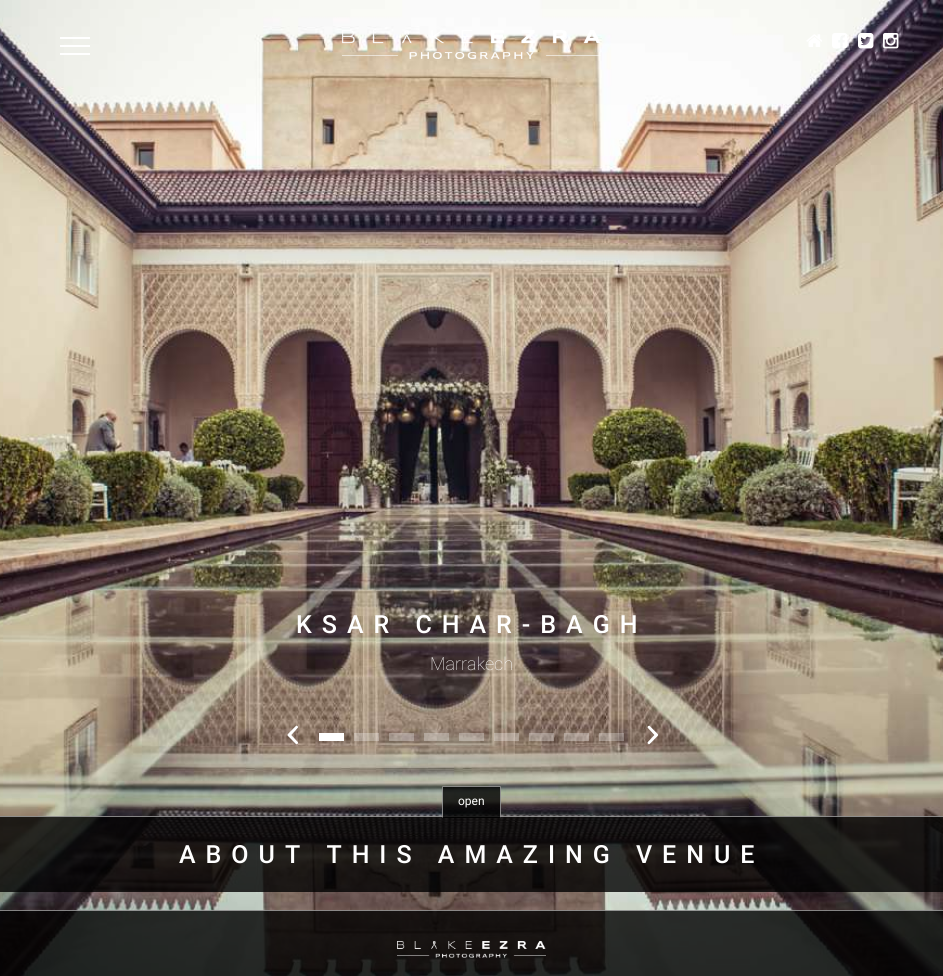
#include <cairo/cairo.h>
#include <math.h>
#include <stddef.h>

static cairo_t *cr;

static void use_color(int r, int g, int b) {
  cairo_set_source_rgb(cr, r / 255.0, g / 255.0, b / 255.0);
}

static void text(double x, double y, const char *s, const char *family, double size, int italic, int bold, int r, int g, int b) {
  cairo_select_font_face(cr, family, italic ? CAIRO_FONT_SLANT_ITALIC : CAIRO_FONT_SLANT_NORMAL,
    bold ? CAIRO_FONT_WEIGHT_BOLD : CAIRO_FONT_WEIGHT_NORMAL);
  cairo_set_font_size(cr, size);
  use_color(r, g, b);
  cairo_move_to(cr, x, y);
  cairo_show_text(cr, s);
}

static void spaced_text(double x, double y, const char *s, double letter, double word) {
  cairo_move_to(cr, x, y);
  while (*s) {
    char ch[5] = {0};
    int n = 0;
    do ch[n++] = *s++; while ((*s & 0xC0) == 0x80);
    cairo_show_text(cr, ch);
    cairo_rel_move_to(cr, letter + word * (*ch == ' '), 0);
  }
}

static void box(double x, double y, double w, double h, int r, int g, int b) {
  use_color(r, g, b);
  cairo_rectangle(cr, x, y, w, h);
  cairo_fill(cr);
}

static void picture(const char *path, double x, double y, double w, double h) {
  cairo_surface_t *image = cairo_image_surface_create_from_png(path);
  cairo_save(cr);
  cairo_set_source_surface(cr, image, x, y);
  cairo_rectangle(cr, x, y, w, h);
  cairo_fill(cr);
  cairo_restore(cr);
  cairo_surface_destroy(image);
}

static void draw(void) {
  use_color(255, 255, 255);
  cairo_paint(cr);
  picture("img_06.png", 0, 0, 943, 976);
  box(60, 45, 30, 2, 255, 255, 255);
  box(60, 37, 30, 2, 255, 255, 255);
  box(60, 53, 30, 2, 255, 255, 255);
  picture("img_01.png", 342, 30, 259, 29);
  picture("img_02.png", 806, 34, 16, 13);
  picture("img_03.png", 832, 33, 16, 16);
  picture("img_04.png", 858, 33, 16, 16);
  picture("img_05.png", 883, 33, 16, 16);
  box(319, 733, 25, 8, 255, 255, 255);
  cairo_set_source_rgba(cr, 1, 1, 1, 0.3);
  cairo_rectangle(cr, 354, 733, 25, 8);
  cairo_fill(cr);
  cairo_rectangle(cr, 389, 733, 25, 8);
  cairo_fill(cr);
  cairo_rectangle(cr, 424, 733, 25, 8);
  cairo_fill(cr);
  cairo_rectangle(cr, 459, 733, 25, 8);
  cairo_fill(cr);
  cairo_rectangle(cr, 494, 733, 25, 8);
  cairo_fill(cr);
  cairo_rectangle(cr, 529, 733, 25, 8);
  cairo_fill(cr);
  cairo_rectangle(cr, 564, 733, 25, 8);
  cairo_fill(cr);
  cairo_rectangle(cr, 599, 733, 25, 8);
  cairo_fill(cr);
  picture("img_07.png", 287, 725, 11, 20);
  picture("img_08.png", 647, 725, 12, 20);
  cairo_set_source_rgba(cr, 0, 0, 0, 0.8);
  cairo_rectangle(cr, 0, 816, 943, 76);
  cairo_fill(cr);
  cairo_set_source_rgba(cr, 1, 1, 1, 0.5);
  cairo_rectangle(cr, 0, 816, 943, 1);
  cairo_fill(cr);
  cairo_set_source_rgba(cr, 0, 0, 0, 0.8);
  cairo_rectangle(cr, 442, 786, 59, 32);
  cairo_fill(cr);
  cairo_set_source_rgba(cr, 1, 1, 1, 0.5);
  cairo_new_path(cr);
  cairo_move_to(cr, 442, 786);
  cairo_line_to(cr, 501, 786);
  cairo_line_to(cr, 500, 787);
  cairo_line_to(cr, 443, 787);
  cairo_close_path(cr);
  cairo_fill(cr);
  cairo_new_path(cr);
  cairo_move_to(cr, 501, 786);
  cairo_line_to(cr, 501, 818);
  cairo_line_to(cr, 500, 817);
  cairo_line_to(cr, 500, 787);
  cairo_close_path(cr);
  cairo_fill(cr);
  cairo_set_source_rgba(cr, 0, 0, 0, 0.8);
  cairo_new_path(cr);
  cairo_move_to(cr, 501, 818);
  cairo_line_to(cr, 442, 818);
  cairo_line_to(cr, 443, 817);
  cairo_line_to(cr, 500, 817);
  cairo_close_path(cr);
  cairo_fill(cr);
  cairo_set_source_rgba(cr, 1, 1, 1, 0.5);
  cairo_new_path(cr);
  cairo_move_to(cr, 442, 818);
  cairo_line_to(cr, 442, 786);
  cairo_line_to(cr, 443, 787);
  cairo_line_to(cr, 443, 817);
  cairo_close_path(cr);
  cairo_fill(cr);
  cairo_set_source_rgba(cr, 0, 0, 0, 0.8);
  cairo_rectangle(cr, 0, 910, 943, 66);
  cairo_fill(cr);
  cairo_set_source_rgba(cr, 1, 1, 1, 0.5);
  cairo_rectangle(cr, 0, 910, 943, 1);
  cairo_fill(cr);
  picture("img_09.png", 397, 941, 149, 17);
  cairo_select_font_face(cr, "Roboto Medium", CAIRO_FONT_SLANT_NORMAL, CAIRO_FONT_WEIGHT_NORMAL);
  cairo_set_font_size(cr, 25);
  use_color(255, 255, 255);
  spaced_text(296, 633, "KSAR CHAR-BAGH", 10, 0);
  text(430, 670, "Marrakech", "Roboto Thin", 18, 0, 0, 255, 255, 255);
  text(458, 805, "open", "Roboto", 12, 0, 0, 255, 255, 255);
  cairo_select_font_face(cr, "Roboto Medium", CAIRO_FONT_SLANT_NORMAL, CAIRO_FONT_WEIGHT_NORMAL);
  cairo_set_font_size(cr, 25);
  spaced_text(179, 863, "ABOUT THIS AMAZING VENUE", 10, 0);
}

int main(void) {
  cairo_surface_t *surface = cairo_image_surface_create(CAIRO_FORMAT_RGB24, 943, 976);
  cr = cairo_create(surface);
  cairo_font_options_t *options = cairo_font_options_create();
  cairo_font_options_set_hint_metrics(options, CAIRO_HINT_METRICS_OFF);
  cairo_font_options_set_hint_style(options, CAIRO_HINT_STYLE_NONE);
  cairo_set_font_options(cr, options);
  cairo_set_miter_limit(cr, 4);
  draw();
  cairo_surface_write_to_png(surface, "out.png");
  cairo_font_options_destroy(options);
  cairo_destroy(cr);
  cairo_surface_destroy(surface);
  return 0;
}
